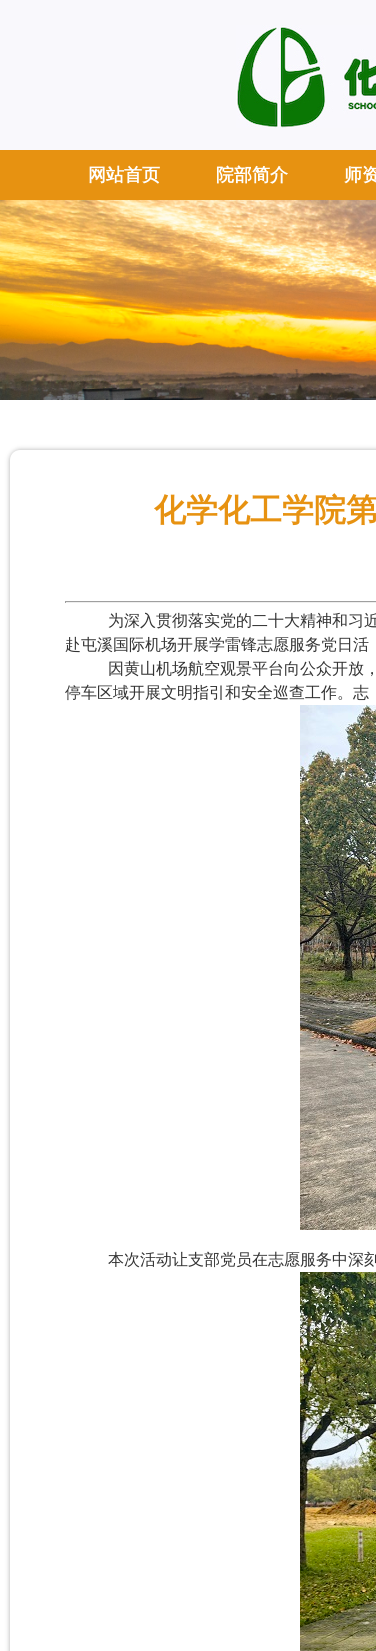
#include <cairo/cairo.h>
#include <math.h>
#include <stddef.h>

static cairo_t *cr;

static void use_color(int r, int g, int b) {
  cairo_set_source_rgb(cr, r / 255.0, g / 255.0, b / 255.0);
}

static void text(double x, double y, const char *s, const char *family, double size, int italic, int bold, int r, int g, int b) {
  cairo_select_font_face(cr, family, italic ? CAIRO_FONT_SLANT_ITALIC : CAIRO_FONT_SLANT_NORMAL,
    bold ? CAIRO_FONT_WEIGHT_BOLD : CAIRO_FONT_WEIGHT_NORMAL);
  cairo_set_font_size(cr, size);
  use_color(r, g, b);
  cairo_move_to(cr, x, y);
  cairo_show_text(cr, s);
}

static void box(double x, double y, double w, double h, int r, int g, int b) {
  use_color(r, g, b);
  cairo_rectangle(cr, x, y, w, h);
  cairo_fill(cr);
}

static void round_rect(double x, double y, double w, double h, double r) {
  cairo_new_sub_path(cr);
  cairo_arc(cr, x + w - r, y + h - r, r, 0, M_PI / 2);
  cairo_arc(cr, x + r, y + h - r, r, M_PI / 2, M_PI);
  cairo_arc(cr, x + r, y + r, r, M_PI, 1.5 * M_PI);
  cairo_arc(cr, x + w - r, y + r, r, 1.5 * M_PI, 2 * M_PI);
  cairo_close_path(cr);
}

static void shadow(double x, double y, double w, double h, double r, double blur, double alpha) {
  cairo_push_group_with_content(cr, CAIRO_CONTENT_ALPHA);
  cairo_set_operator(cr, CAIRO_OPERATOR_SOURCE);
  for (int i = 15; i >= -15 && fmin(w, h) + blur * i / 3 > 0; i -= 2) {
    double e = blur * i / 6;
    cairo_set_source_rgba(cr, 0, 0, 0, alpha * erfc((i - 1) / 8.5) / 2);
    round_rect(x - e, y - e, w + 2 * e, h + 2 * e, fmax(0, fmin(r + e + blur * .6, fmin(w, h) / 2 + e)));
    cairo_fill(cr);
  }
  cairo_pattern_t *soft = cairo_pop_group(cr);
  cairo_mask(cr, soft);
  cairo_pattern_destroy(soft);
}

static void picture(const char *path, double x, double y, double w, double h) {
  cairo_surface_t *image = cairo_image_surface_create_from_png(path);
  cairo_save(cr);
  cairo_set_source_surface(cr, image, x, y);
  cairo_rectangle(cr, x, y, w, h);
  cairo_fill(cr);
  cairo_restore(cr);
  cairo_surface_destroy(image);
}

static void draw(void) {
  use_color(255, 255, 255);
  cairo_paint(cr);
  box(0, 0, 376, 150, 249, 248, 252);
  picture("img_01.png", 236, 25, 140, 103);
  box(0, 150, 376, 50, 231, 146, 17);
  picture("img_02.png", 0, 200, 376, 200);
  use_color(176, 176, 176);
  shadow(10, 450, 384, 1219, 10, 2.5, 1);
  use_color(255, 255, 255);
  round_rect(10, 450, 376, 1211, 10);
  cairo_fill(cr);
  box(65, 601, 311, 1, 159, 159, 159);
  box(65, 602, 311, 1, 238, 238, 238);
  box(65, 601, 1, 2, 159, 159, 159);
  picture("img_03.png", 300, 705, 76, 525);
  picture("img_04.png", 300, 1272, 76, 379);
  text(88, 181, "网站首页", "WenQuanYi Zen Hei", 18, 0, 1, 255, 255, 255);
  text(216, 181, "院部简介", "WenQuanYi Zen Hei", 18, 0, 1, 255, 255, 255);
  text(344, 181, "师资", "WenQuanYi Zen Hei", 18, 0, 1, 255, 255, 255);
  text(154, 521, "化学化工学院第", "WenQuanYi Zen Hei", 32, 0, 1, 231, 146, 17);
  text(108, 626, "为深入贯彻落实党的二十大精神和习近", "WenQuanYi Zen Hei Medium", 16, 0, 0, 51, 51, 51);
  text(65, 650, "赴屯溪国际机场开展学雷锋志愿服务党日活", "WenQuanYi Zen Hei Medium", 16, 0, 0, 51, 51, 51);
  text(108, 674, "因黄山机场航空观景平台向公众开放，", "WenQuanYi Zen Hei Medium", 16, 0, 0, 51, 51, 51);
  text(65, 698, "停车区域开展文明指引和安全巡查工作。志", "WenQuanYi Zen Hei Medium", 16, 0, 0, 51, 51, 51);
  text(108, 1265, "本次活动让支部党员在志愿服务中深刻", "WenQuanYi Zen Hei Medium", 16, 0, 0, 51, 51, 51);
}

int main(void) {
  cairo_surface_t *surface = cairo_image_surface_create(CAIRO_FORMAT_RGB24, 376, 1651);
  cr = cairo_create(surface);
  cairo_font_options_t *options = cairo_font_options_create();
  cairo_font_options_set_hint_metrics(options, CAIRO_HINT_METRICS_OFF);
  cairo_font_options_set_hint_style(options, CAIRO_HINT_STYLE_NONE);
  cairo_set_font_options(cr, options);
  cairo_set_miter_limit(cr, 4);
  draw();
  cairo_surface_write_to_png(surface, "out.png");
  cairo_font_options_destroy(options);
  cairo_destroy(cr);
  cairo_surface_destroy(surface);
  return 0;
}
